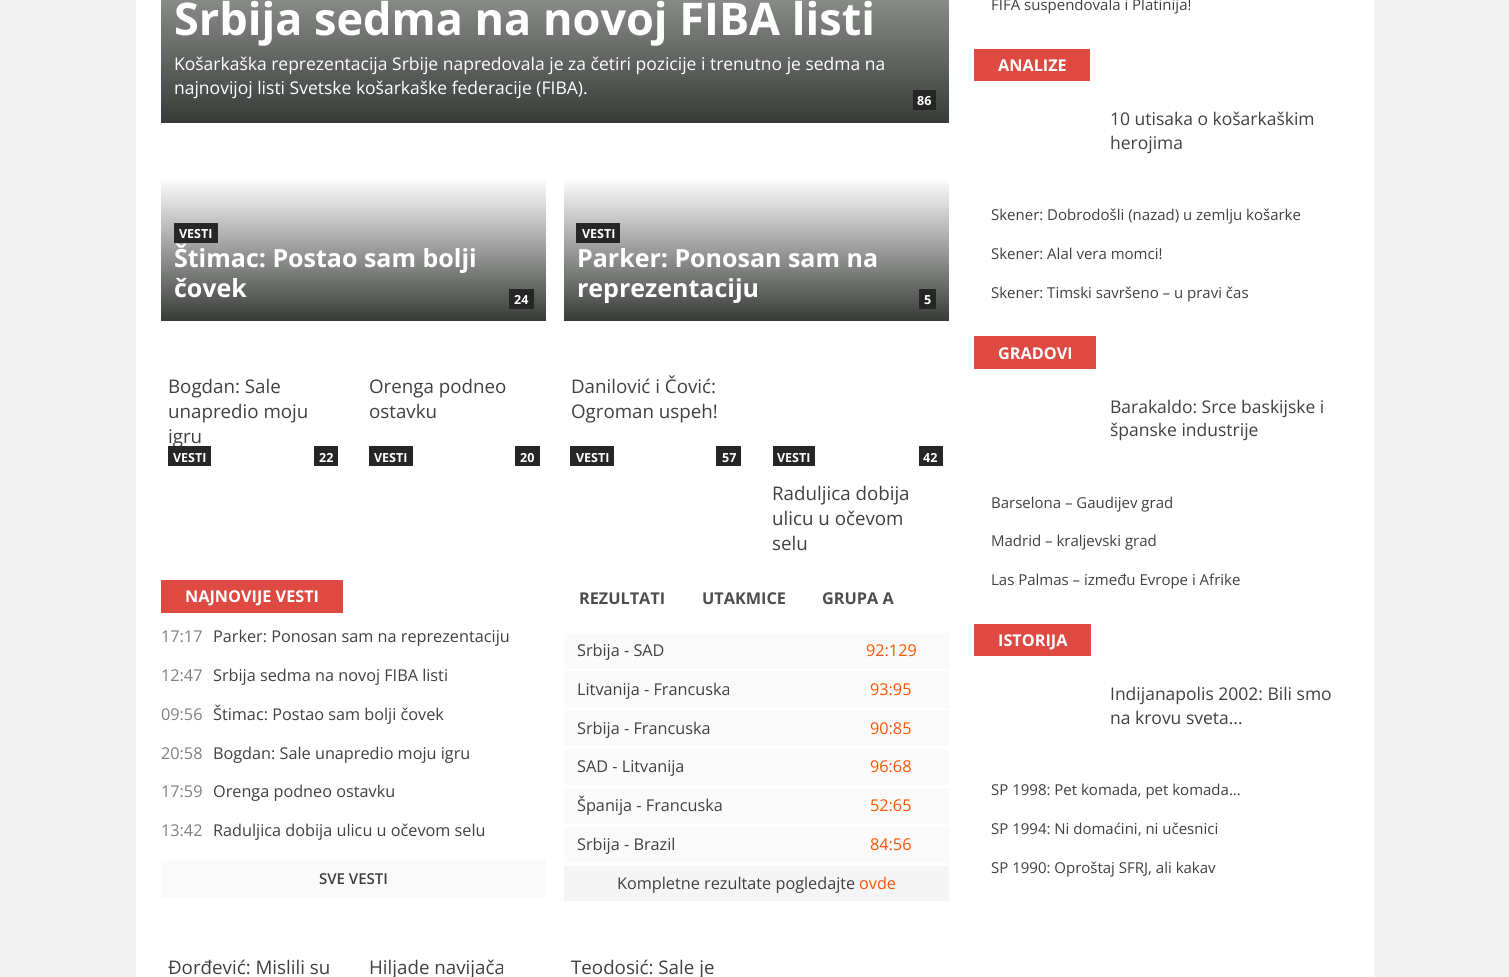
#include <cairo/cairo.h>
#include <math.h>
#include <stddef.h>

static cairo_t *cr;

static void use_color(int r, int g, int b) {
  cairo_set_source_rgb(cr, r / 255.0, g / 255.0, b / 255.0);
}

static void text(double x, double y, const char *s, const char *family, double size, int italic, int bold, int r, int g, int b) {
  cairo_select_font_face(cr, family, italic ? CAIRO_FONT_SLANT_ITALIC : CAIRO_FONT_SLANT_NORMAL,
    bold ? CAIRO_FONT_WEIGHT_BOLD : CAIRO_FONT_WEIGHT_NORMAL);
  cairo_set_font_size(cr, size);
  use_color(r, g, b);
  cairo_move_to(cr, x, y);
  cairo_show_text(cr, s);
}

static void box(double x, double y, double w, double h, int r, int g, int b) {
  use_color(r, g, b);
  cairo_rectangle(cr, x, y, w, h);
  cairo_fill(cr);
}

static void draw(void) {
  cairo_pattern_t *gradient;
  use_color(242, 242, 242);
  cairo_paint(cr);
  box(136, 0, 1238, 977, 255, 255, 255);
  gradient = cairo_pattern_create_linear(555, -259, 555, 123);
  cairo_pattern_add_color_stop_rgba(gradient, 0, 1, 1, 1, 1);
  cairo_pattern_add_color_stop_rgba(gradient, 0.2, 1, 1, 1, 1);
  cairo_pattern_add_color_stop_rgba(gradient, 0.99, 0.227, 0.243, 0.227, 1);
  cairo_pattern_add_color_stop_rgba(gradient, 1, 0.22, 0.231, 0.22, 1);
  cairo_set_source(cr, gradient);
  cairo_pattern_destroy(gradient);
  cairo_rectangle(cr, 161, 0, 788, 123);
  cairo_fill(cr);
  box(913, 90, 23, 20, 38, 38, 38);
  gradient = cairo_pattern_create_linear(354, 142, 354, 321);
  cairo_pattern_add_color_stop_rgba(gradient, 0, 1, 1, 1, 1);
  cairo_pattern_add_color_stop_rgba(gradient, 0.2, 1, 1, 1, 1);
  cairo_pattern_add_color_stop_rgba(gradient, 0.99, 0.227, 0.239, 0.227, 1);
  cairo_pattern_add_color_stop_rgba(gradient, 1, 0.22, 0.231, 0.22, 1);
  cairo_set_source(cr, gradient);
  cairo_pattern_destroy(gradient);
  cairo_rectangle(cr, 161, 180, 385, 141);
  cairo_fill(cr);
  box(174, 223, 44, 20, 38, 38, 38);
  box(509, 289, 25, 20, 38, 38, 38);
  gradient = cairo_pattern_create_linear(756, 142, 756, 321);
  cairo_pattern_add_color_stop_rgba(gradient, 0, 1, 1, 1, 1);
  cairo_pattern_add_color_stop_rgba(gradient, 0.2, 1, 1, 1, 1);
  cairo_pattern_add_color_stop_rgba(gradient, 0.99, 0.227, 0.239, 0.227, 1);
  cairo_pattern_add_color_stop_rgba(gradient, 1, 0.22, 0.231, 0.22, 1);
  cairo_set_source(cr, gradient);
  cairo_pattern_destroy(gradient);
  cairo_rectangle(cr, 564, 180, 385, 141);
  cairo_fill(cr);
  box(576, 223, 44, 20, 38, 38, 38);
  box(919, 289, 17, 20, 38, 38, 38);
  box(314, 446, 24, 20, 38, 38, 38);
  box(369, 446, 44, 20, 38, 38, 38);
  box(515, 446, 25, 20, 38, 38, 38);
  box(570, 446, 44, 20, 38, 38, 38);
  box(716, 446, 25, 20, 38, 38, 38);
  box(773, 446, 42, 20, 38, 38, 38);
  box(919, 446, 24, 20, 38, 38, 38);
  box(161, 580, 182, 33, 222, 73, 66);
  box(161, 860, 385, 38, 250, 250, 250);
  box(564, 633, 385, 36, 250, 250, 250);
  box(564, 671, 385, 37, 250, 250, 250);
  box(564, 710, 385, 36, 250, 250, 250);
  box(564, 749, 385, 36, 250, 250, 250);
  box(564, 788, 385, 36, 250, 250, 250);
  box(564, 826, 385, 37, 250, 250, 250);
  box(564, 866, 385, 35, 245, 245, 245);
  box(974, 49, 116, 32, 222, 73, 66);
  box(974, 336, 122, 33, 222, 73, 66);
  box(974, 624, 117, 32, 222, 73, 66);
  text(174, 35, "Srbija sedma na novoj FIBA listi", "Open Sans", 45, 0, 1, 255, 255, 255);
  text(174, 70, "Košarkaška reprezentacija Srbije napredovala je za četiri pozicije i trenutno je sedma na", "Open Sans", 17.5, 0, 0, 255, 255, 255);
  text(174, 94, "najnovijoj listi Svetske košarkaške federacije (FIBA).", "Open Sans", 17.5, 0, 0, 255, 255, 255);
  text(917, 105, "86", "Open Sans", 12.5, 0, 1, 255, 255, 255);
  text(179, 238, "VESTI", "Open Sans", 12.5, 0, 1, 255, 255, 255);
  text(514, 304, "24", "Open Sans", 12.5, 0, 1, 255, 255, 255);
  text(174, 267, "Štimac: Postao sam bolji", "Open Sans", 25, 0, 1, 255, 255, 255);
  text(174, 297, "čovek", "Open Sans", 25, 0, 1, 255, 255, 255);
  text(582, 238, "VESTI", "Open Sans", 12.5, 0, 1, 255, 255, 255);
  text(924, 304, "5", "Open Sans", 12.5, 0, 1, 255, 255, 255);
  text(577, 267, "Parker: Ponosan sam na", "Open Sans", 25, 0, 1, 255, 255, 255);
  text(577, 297, "reprezentaciju", "Open Sans", 25, 0, 1, 255, 255, 255);
  text(168, 393, "Bogdan: Sale", "Open Sans", 18.75, 0, 0, 64, 64, 64);
  text(168, 418, "unapredio moju", "Open Sans", 18.75, 0, 0, 64, 64, 64);
  text(168, 443, "igru", "Open Sans", 18.75, 0, 0, 64, 64, 64);
  box(168, 446, 43, 20, 38, 38, 38);
  text(173, 462, "VESTI", "Open Sans", 12.5, 0, 1, 255, 255, 255);
  text(319, 462, "22", "Open Sans", 12.5, 0, 1, 255, 255, 255);
  text(369, 393, "Orenga podneo", "Open Sans", 18.75, 0, 0, 64, 64, 64);
  text(369, 418, "ostavku", "Open Sans", 18.75, 0, 0, 64, 64, 64);
  text(374, 462, "VESTI", "Open Sans", 12.5, 0, 1, 255, 255, 255);
  text(520, 462, "20", "Open Sans", 12.5, 0, 1, 255, 255, 255);
  text(571, 393, "Danilović i Čović:", "Open Sans", 18.75, 0, 0, 64, 64, 64);
  text(571, 418, "Ogroman uspeh!", "Open Sans", 18.75, 0, 0, 64, 64, 64);
  text(576, 462, "VESTI", "Open Sans", 12.5, 0, 1, 255, 255, 255);
  text(722, 462, "57", "Open Sans", 12.5, 0, 1, 255, 255, 255);
  text(777, 462, "VESTI", "Open Sans", 12.5, 0, 1, 255, 255, 255);
  text(923, 462, "42", "Open Sans", 12.5, 0, 1, 255, 255, 255);
  text(772, 500, "Raduljica dobija", "Open Sans", 18.75, 0, 0, 64, 64, 64);
  text(772, 525, "ulicu u očevom", "Open Sans", 18.75, 0, 0, 64, 64, 64);
  text(772, 550, "selu", "Open Sans", 18.75, 0, 0, 64, 64, 64);
  text(185, 602, "NAJNOVIJE VESTI", "Open Sans", 16.25, 0, 1, 255, 255, 255);
  text(161, 642, "17:17", "Open Sans", 16.25, 0, 0, 128, 128, 128);
  text(213, 642, "Parker: Ponosan sam na reprezentaciju", "Open Sans", 16.25, 0, 0, 64, 64, 64);
  text(161, 681, "12:47", "Open Sans", 16.25, 0, 0, 128, 128, 128);
  text(213, 681, "Srbija sedma na novoj FIBA listi", "Open Sans", 16.25, 0, 0, 64, 64, 64);
  text(161, 720, "09:56", "Open Sans", 16.25, 0, 0, 128, 128, 128);
  text(213, 720, "Štimac: Postao sam bolji čovek", "Open Sans", 16.25, 0, 0, 64, 64, 64);
  text(161, 759, "20:58", "Open Sans", 16.25, 0, 0, 128, 128, 128);
  text(213, 759, "Bogdan: Sale unapredio moju igru", "Open Sans", 16.25, 0, 0, 64, 64, 64);
  text(161, 797, "17:59", "Open Sans", 16.25, 0, 0, 128, 128, 128);
  text(213, 797, "Orenga podneo ostavku", "Open Sans", 16.25, 0, 0, 64, 64, 64);
  text(161, 836, "13:42", "Open Sans", 16.25, 0, 0, 128, 128, 128);
  text(213, 836, "Raduljica dobija ulicu u očevom selu", "Open Sans", 16.25, 0, 0, 64, 64, 64);
  text(319, 884, "SVE VESTI", "Open Sans SemiBold", 15, 0, 0, 64, 64, 64);
  text(579, 604, "REZULTATI", "Open Sans", 16.25, 0, 1, 77, 77, 77);
  text(702, 604, "UTAKMICE", "Open Sans", 16.25, 0, 1, 77, 77, 77);
  text(822, 604, "GRUPA A", "Open Sans", 16.25, 0, 1, 77, 77, 77);
  text(577, 656, "Srbija - SAD", "Open Sans", 16.25, 0, 0, 64, 64, 64);
  text(866, 656, "92:129", "Open Sans", 16.25, 0, 0, 255, 84, 0);
  text(577, 695, "Litvanija - Francuska", "Open Sans", 16.25, 0, 0, 64, 64, 64);
  text(870, 695, "93:95", "Open Sans", 16.25, 0, 0, 255, 84, 0);
  text(577, 734, "Srbija - Francuska", "Open Sans", 16.25, 0, 0, 64, 64, 64);
  text(870, 734, "90:85", "Open Sans", 16.25, 0, 0, 255, 84, 0);
  text(577, 772, "SAD - Litvanija", "Open Sans", 16.25, 0, 0, 64, 64, 64);
  text(870, 772, "96:68", "Open Sans", 16.25, 0, 0, 255, 84, 0);
  text(577, 811, "Španija - Francuska", "Open Sans", 16.25, 0, 0, 64, 64, 64);
  text(870, 811, "52:65", "Open Sans", 16.25, 0, 0, 255, 84, 0);
  text(577, 850, "Srbija - Brazil", "Open Sans", 16.25, 0, 0, 64, 64, 64);
  text(870, 850, "84:56", "Open Sans", 16.25, 0, 0, 255, 84, 0);
  text(617, 889, "Kompletne rezultate pogledajte", "Open Sans", 16.25, 0, 0, 64, 64, 64);
  text(859, 889, "ovde", "Open Sans", 16.25, 0, 0, 255, 84, 0);
  text(168, 974, "Đorđević: Mislili su", "Open Sans", 18.75, 0, 0, 64, 64, 64);
  text(369, 974, "Hiljade navijača", "Open Sans", 18.75, 0, 0, 64, 64, 64);
  text(571, 974, "Teodosić: Sale je", "Open Sans", 18.75, 0, 0, 64, 64, 64);
  text(991, 10, "FIFA suspendovala i Platinija!", "Open Sans", 15, 0, 0, 64, 64, 64);
  text(998, 71, "ANALIZE", "Open Sans", 16.25, 0, 1, 255, 255, 255);
  text(1110, 125, "10 utisaka o košarkaškim", "Open Sans", 17.5, 0, 0, 64, 64, 64);
  text(1110, 149, "herojima", "Open Sans", 17.5, 0, 0, 64, 64, 64);
  text(991, 220, "Skener: Dobrodošli (nazad) u zemlju košarke", "Open Sans", 15, 0, 0, 64, 64, 64);
  text(991, 259, "Skener: Alal vera momci!", "Open Sans", 15, 0, 0, 64, 64, 64);
  text(991, 298, "Skener: Timski savršeno – u pravi čas", "Open Sans", 15, 0, 0, 64, 64, 64);
  text(998, 359, "GRADOVI", "Open Sans", 16.25, 0, 1, 255, 255, 255);
  text(1110, 413, "Barakaldo: Srce baskijske i", "Open Sans", 17.5, 0, 0, 64, 64, 64);
  text(1110, 436, "španske industrije", "Open Sans", 17.5, 0, 0, 64, 64, 64);
  text(991, 508, "Barselona – Gaudijev grad", "Open Sans", 15, 0, 0, 64, 64, 64);
  text(991, 546, "Madrid – kraljevski grad", "Open Sans", 15, 0, 0, 64, 64, 64);
  text(991, 585, "Las Palmas – između Evrope i Afrike", "Open Sans", 15, 0, 0, 64, 64, 64);
  text(998, 646, "ISTORIJA", "Open Sans", 16.25, 0, 1, 255, 255, 255);
  text(1110, 700, "Indijanapolis 2002: Bili smo", "Open Sans", 17.5, 0, 0, 64, 64, 64);
  text(1110, 724, "na krovu sveta...", "Open Sans", 17.5, 0, 0, 64, 64, 64);
  text(991, 795, "SP 1998: Pet komada, pet komada...", "Open Sans", 15, 0, 0, 64, 64, 64);
  text(991, 834, "SP 1994: Ni domaćini, ni učesnici", "Open Sans", 15, 0, 0, 64, 64, 64);
  text(991, 873, "SP 1990: Oproštaj SFRJ, ali kakav", "Open Sans", 15, 0, 0, 64, 64, 64);
}

int main(void) {
  cairo_surface_t *surface = cairo_image_surface_create(CAIRO_FORMAT_RGB24, 1509, 977);
  cr = cairo_create(surface);
  cairo_font_options_t *options = cairo_font_options_create();
  cairo_font_options_set_hint_metrics(options, CAIRO_HINT_METRICS_OFF);
  cairo_font_options_set_hint_style(options, CAIRO_HINT_STYLE_NONE);
  cairo_set_font_options(cr, options);
  cairo_set_miter_limit(cr, 4);
  draw();
  cairo_surface_write_to_png(surface, "out.png");
  cairo_font_options_destroy(options);
  cairo_destroy(cr);
  cairo_surface_destroy(surface);
  return 0;
}
